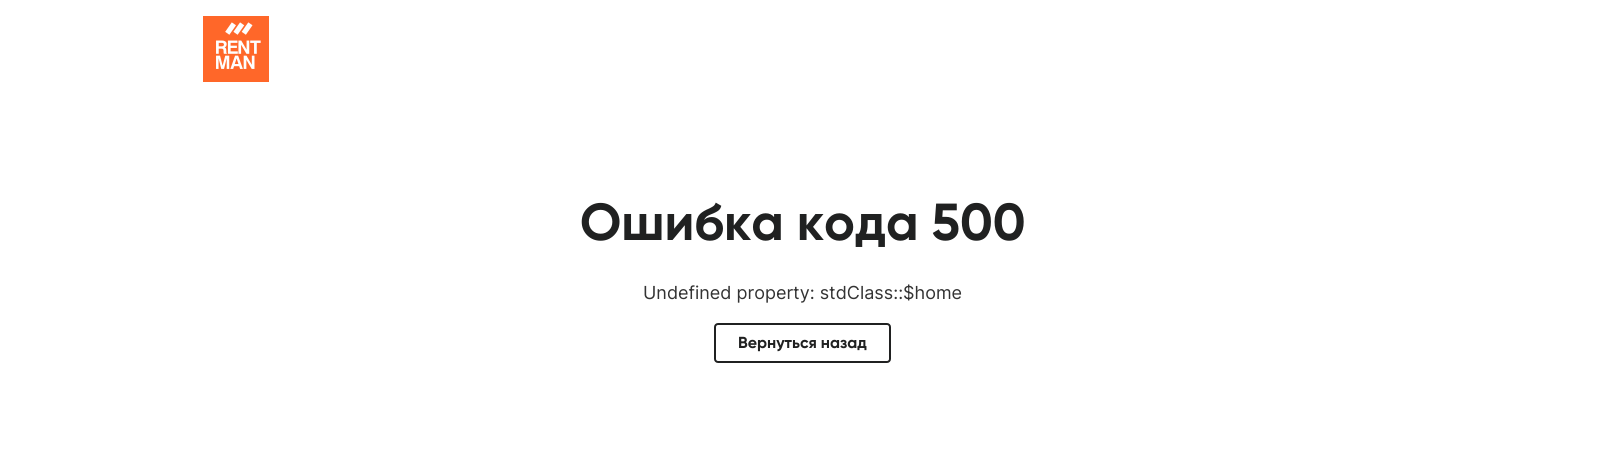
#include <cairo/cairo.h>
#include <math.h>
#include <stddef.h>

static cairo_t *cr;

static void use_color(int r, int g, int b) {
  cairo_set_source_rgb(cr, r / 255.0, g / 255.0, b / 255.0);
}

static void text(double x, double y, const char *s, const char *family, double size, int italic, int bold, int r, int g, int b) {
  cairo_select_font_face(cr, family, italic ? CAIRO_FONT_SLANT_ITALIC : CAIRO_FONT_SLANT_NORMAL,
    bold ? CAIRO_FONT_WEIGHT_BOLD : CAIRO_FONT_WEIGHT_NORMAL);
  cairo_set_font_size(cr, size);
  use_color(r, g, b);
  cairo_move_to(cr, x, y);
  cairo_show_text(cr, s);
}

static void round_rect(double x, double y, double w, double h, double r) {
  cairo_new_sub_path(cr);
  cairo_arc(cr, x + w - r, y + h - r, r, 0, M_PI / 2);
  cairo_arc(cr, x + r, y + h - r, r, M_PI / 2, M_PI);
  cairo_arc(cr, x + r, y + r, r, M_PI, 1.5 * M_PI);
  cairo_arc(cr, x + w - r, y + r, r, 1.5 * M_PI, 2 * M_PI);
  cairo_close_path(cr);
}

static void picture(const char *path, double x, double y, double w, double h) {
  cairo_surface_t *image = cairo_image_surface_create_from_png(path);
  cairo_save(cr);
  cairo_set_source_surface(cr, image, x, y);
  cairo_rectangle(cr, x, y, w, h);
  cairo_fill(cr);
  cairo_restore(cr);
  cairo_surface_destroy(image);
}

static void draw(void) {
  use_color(255, 255, 255);
  cairo_paint(cr);
  picture("img_01.png", 203, 16, 66, 66);
  round_rect(715, 324, 175, 38, 3);
  use_color(32, 33, 33);
  cairo_stroke(cr);
  text(580, 240, "Ошибка кода 500", "Gilroy", 52, 0, 1, 32, 33, 33);
  text(643, 299, "Undefined property: stdClass::$home", "Inter", 18, 0, 0, 51, 51, 51);
  text(738, 348, "Вернуться назад", "Gilroy", 16, 0, 1, 32, 33, 33);
}

int main(void) {
  cairo_surface_t *surface = cairo_image_surface_create(CAIRO_FORMAT_RGB24, 1605, 457);
  cr = cairo_create(surface);
  cairo_font_options_t *options = cairo_font_options_create();
  cairo_font_options_set_hint_metrics(options, CAIRO_HINT_METRICS_OFF);
  cairo_font_options_set_hint_style(options, CAIRO_HINT_STYLE_NONE);
  cairo_set_font_options(cr, options);
  cairo_set_miter_limit(cr, 4);
  draw();
  cairo_surface_write_to_png(surface, "out.png");
  cairo_font_options_destroy(options);
  cairo_destroy(cr);
  cairo_surface_destroy(surface);
  return 0;
}
